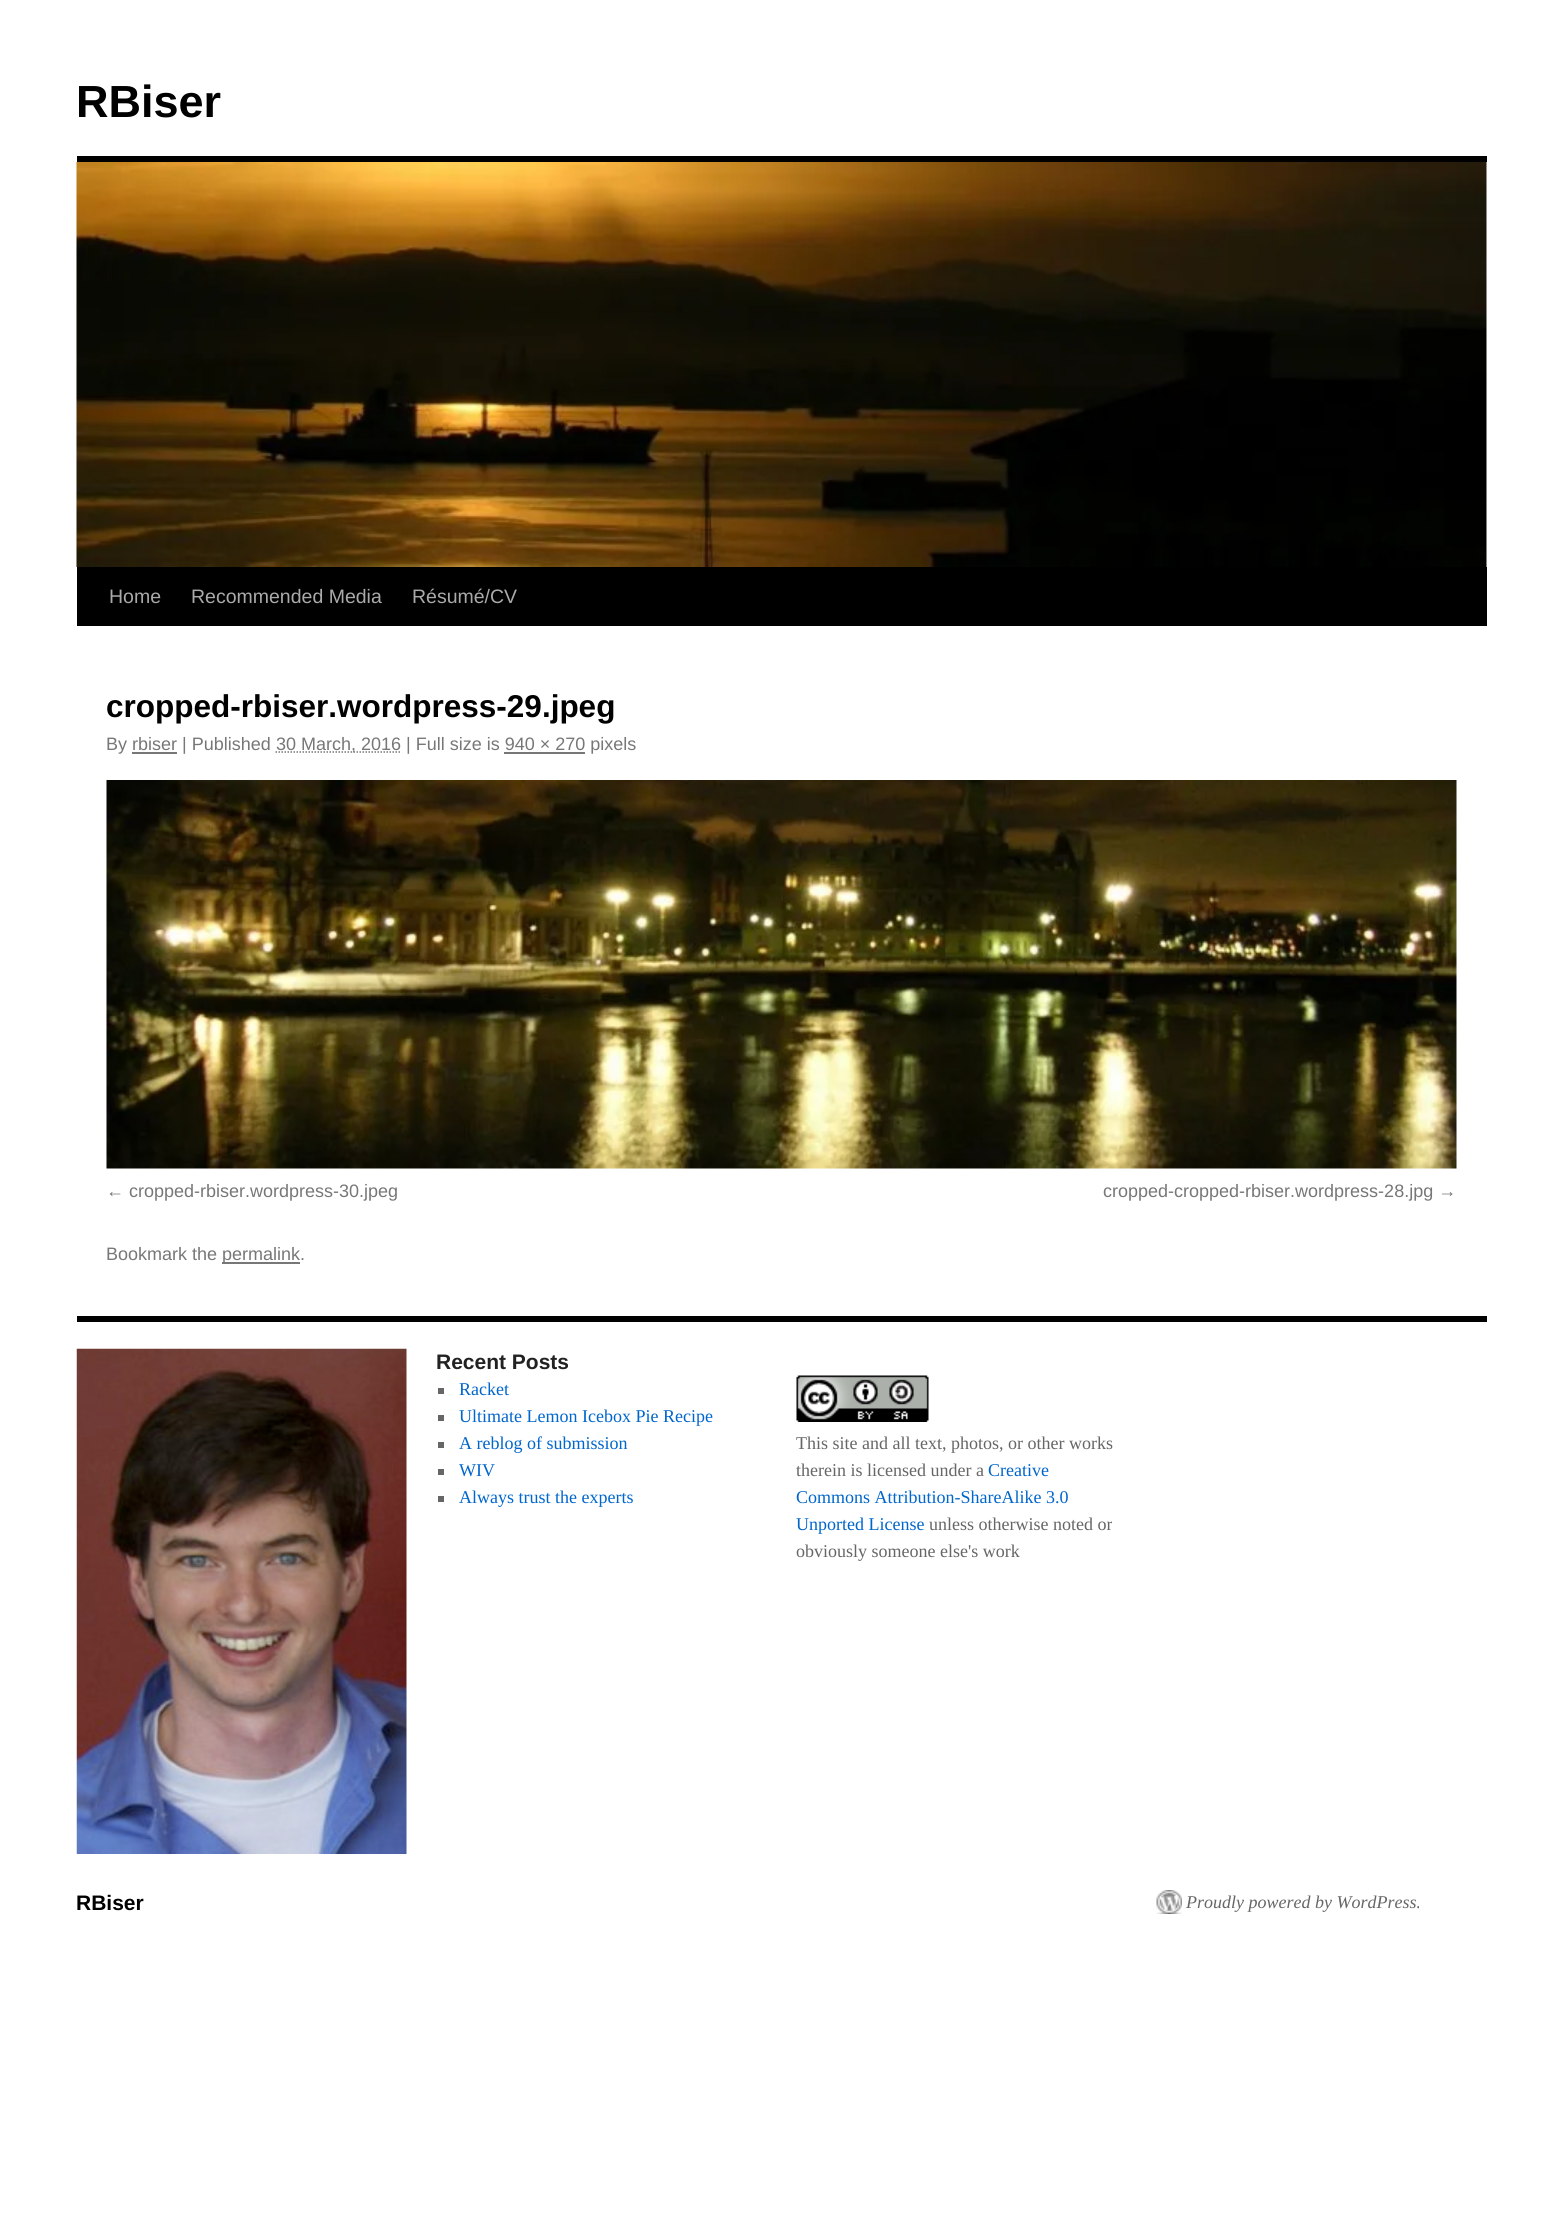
#include <cairo/cairo.h>
#include <math.h>
#include <stddef.h>

static cairo_t *cr;

static void use_color(int r, int g, int b) {
  cairo_set_source_rgb(cr, r / 255.0, g / 255.0, b / 255.0);
}

static void text(double x, double y, const char *s, const char *family, double size, int italic, int bold, int r, int g, int b) {
  cairo_select_font_face(cr, family, italic ? CAIRO_FONT_SLANT_ITALIC : CAIRO_FONT_SLANT_NORMAL,
    bold ? CAIRO_FONT_WEIGHT_BOLD : CAIRO_FONT_WEIGHT_NORMAL);
  cairo_set_font_size(cr, size);
  use_color(r, g, b);
  cairo_move_to(cr, x, y);
  cairo_show_text(cr, s);
}

static void box(double x, double y, double w, double h, int r, int g, int b) {
  use_color(r, g, b);
  cairo_rectangle(cr, x, y, w, h);
  cairo_fill(cr);
}

static void picture(const char *path, double x, double y, double w, double h) {
  cairo_surface_t *image = cairo_image_surface_create_from_png(path);
  cairo_save(cr);
  cairo_set_source_surface(cr, image, x, y);
  cairo_rectangle(cr, x, y, w, h);
  cairo_fill(cr);
  cairo_restore(cr);
  cairo_surface_destroy(image);
}

static void draw(void) {
  use_color(255, 255, 255);
  cairo_paint(cr);
  box(77, 156, 1410, 6, 0, 0, 0);
  box(77, 567, 1410, 59, 0, 0, 0);
  picture("img_01.png", 76, 162, 1411, 405);
  cairo_new_path(cr);
  cairo_move_to(cr, 275.5, 752);
  cairo_line_to(cr, 400.5, 752);
  use_color(119, 119, 119);
  cairo_set_line_width(cr, 1.5);
  cairo_set_dash(cr, (double[]){1.5, 1.5}, 2, 0);
  cairo_stroke(cr);
  box(132, 752, 45, 2, 119, 119, 119);
  box(504, 752, 81, 2, 119, 119, 119);
  picture("img_02.png", 106, 780, 1351, 389);
  box(222, 1262, 78, 2, 119, 119, 119);
  box(77, 1316, 1410, 6, 0, 0, 0);
  picture("img_03.png", 76, 1348, 331, 506);
  box(438, 1388, 6, 6, 102, 102, 102);
  box(438, 1415, 6, 6, 102, 102, 102);
  box(438, 1442, 6, 6, 102, 102, 102);
  box(438, 1469, 6, 6, 102, 102, 102);
  box(438, 1496, 6, 6, 102, 102, 102);
  picture("img_04.png", 796, 1375, 133, 47);
  picture("img_05.png", 1156, 1890, 26, 24);
  text(76, 117, "RBiser", "Liberation Sans", 45, 0, 1, 0, 0, 0);
  text(109, 603, "Home", "Liberation Sans", 19.5, 0, 0, 170, 170, 170);
  text(191, 603, "Recommended Media", "Liberation Sans", 19.5, 0, 0, 170, 170, 170);
  text(412, 603, "Résumé/CV", "Liberation Sans", 19.5, 0, 0, 170, 170, 170);
  text(106, 717, "cropped-rbiser.wordpress-29.jpeg", "Liberation Sans", 31.5, 0, 1, 0, 0, 0);
  text(106, 750, "By rbiser | Published", "Liberation Sans", 18, 0, 0, 119, 119, 119);
  text(276, 750, "30 March, 2016 | Full size is 940 × 270 pixels", "Liberation Sans", 18, 0, 0, 119, 119, 119);
  text(106, 1197, "← cropped-rbiser.wordpress-30.jpeg", "Liberation Sans", 18, 0, 0, 119, 119, 119);
  text(1103, 1197, "cropped-cropped-rbiser.wordpress-28.jpg →", "Liberation Sans", 18, 0, 0, 119, 119, 119);
  text(106, 1260, "Bookmark the", "Liberation Sans", 18, 0, 0, 119, 119, 119);
  text(222, 1260, "permalink.", "Liberation Sans", 18, 0, 0, 119, 119, 119);
  text(436, 1369, "Recent Posts", "Liberation Sans", 21, 0, 1, 34, 34, 34);
  text(459, 1395, "Racket", "Liberation Serif", 18, 0, 0, 0, 102, 204);
  text(459, 1422, "Ultimate Lemon Icebox Pie Recipe", "Liberation Serif", 18, 0, 0, 0, 102, 204);
  text(459, 1449, "A reblog of submission", "Liberation Serif", 18, 0, 0, 0, 102, 204);
  text(459, 1476, "WIV", "Liberation Serif", 18, 0, 0, 0, 102, 204);
  text(459, 1503, "Always trust the experts", "Liberation Serif", 18, 0, 0, 0, 102, 204);
  text(796, 1449, "This site and all text, photos, or other works", "Liberation Serif", 18, 0, 0, 102, 102, 102);
  text(796, 1476, "therein is licensed under a", "Liberation Serif", 18, 0, 0, 102, 102, 102);
  text(988, 1476, "Creative", "Liberation Serif", 18, 0, 0, 0, 102, 204);
  text(796, 1503, "Commons Attribution-ShareAlike 3.0", "Liberation Serif", 18, 0, 0, 0, 102, 204);
  text(796, 1530, "Unported License", "Liberation Serif", 18, 0, 0, 0, 102, 204);
  text(929, 1530, "unless otherwise noted or", "Liberation Serif", 18, 0, 0, 102, 102, 102);
  text(796, 1557, "obviously someone else's work", "Liberation Serif", 18, 0, 0, 102, 102, 102);
  text(76, 1910, "RBiser", "Liberation Sans", 21, 0, 1, 0, 0, 0);
  text(1186, 1908, "Proudly powered by WordPress.", "Liberation Serif", 18, 1, 0, 102, 102, 102);
}

int main(void) {
  cairo_surface_t *surface = cairo_image_surface_create(CAIRO_FORMAT_RGB24, 1561, 2228);
  cr = cairo_create(surface);
  cairo_font_options_t *options = cairo_font_options_create();
  cairo_font_options_set_hint_metrics(options, CAIRO_HINT_METRICS_OFF);
  cairo_font_options_set_hint_style(options, CAIRO_HINT_STYLE_NONE);
  cairo_set_font_options(cr, options);
  cairo_set_miter_limit(cr, 4);
  draw();
  cairo_surface_write_to_png(surface, "out.png");
  cairo_font_options_destroy(options);
  cairo_destroy(cr);
  cairo_surface_destroy(surface);
  return 0;
}
